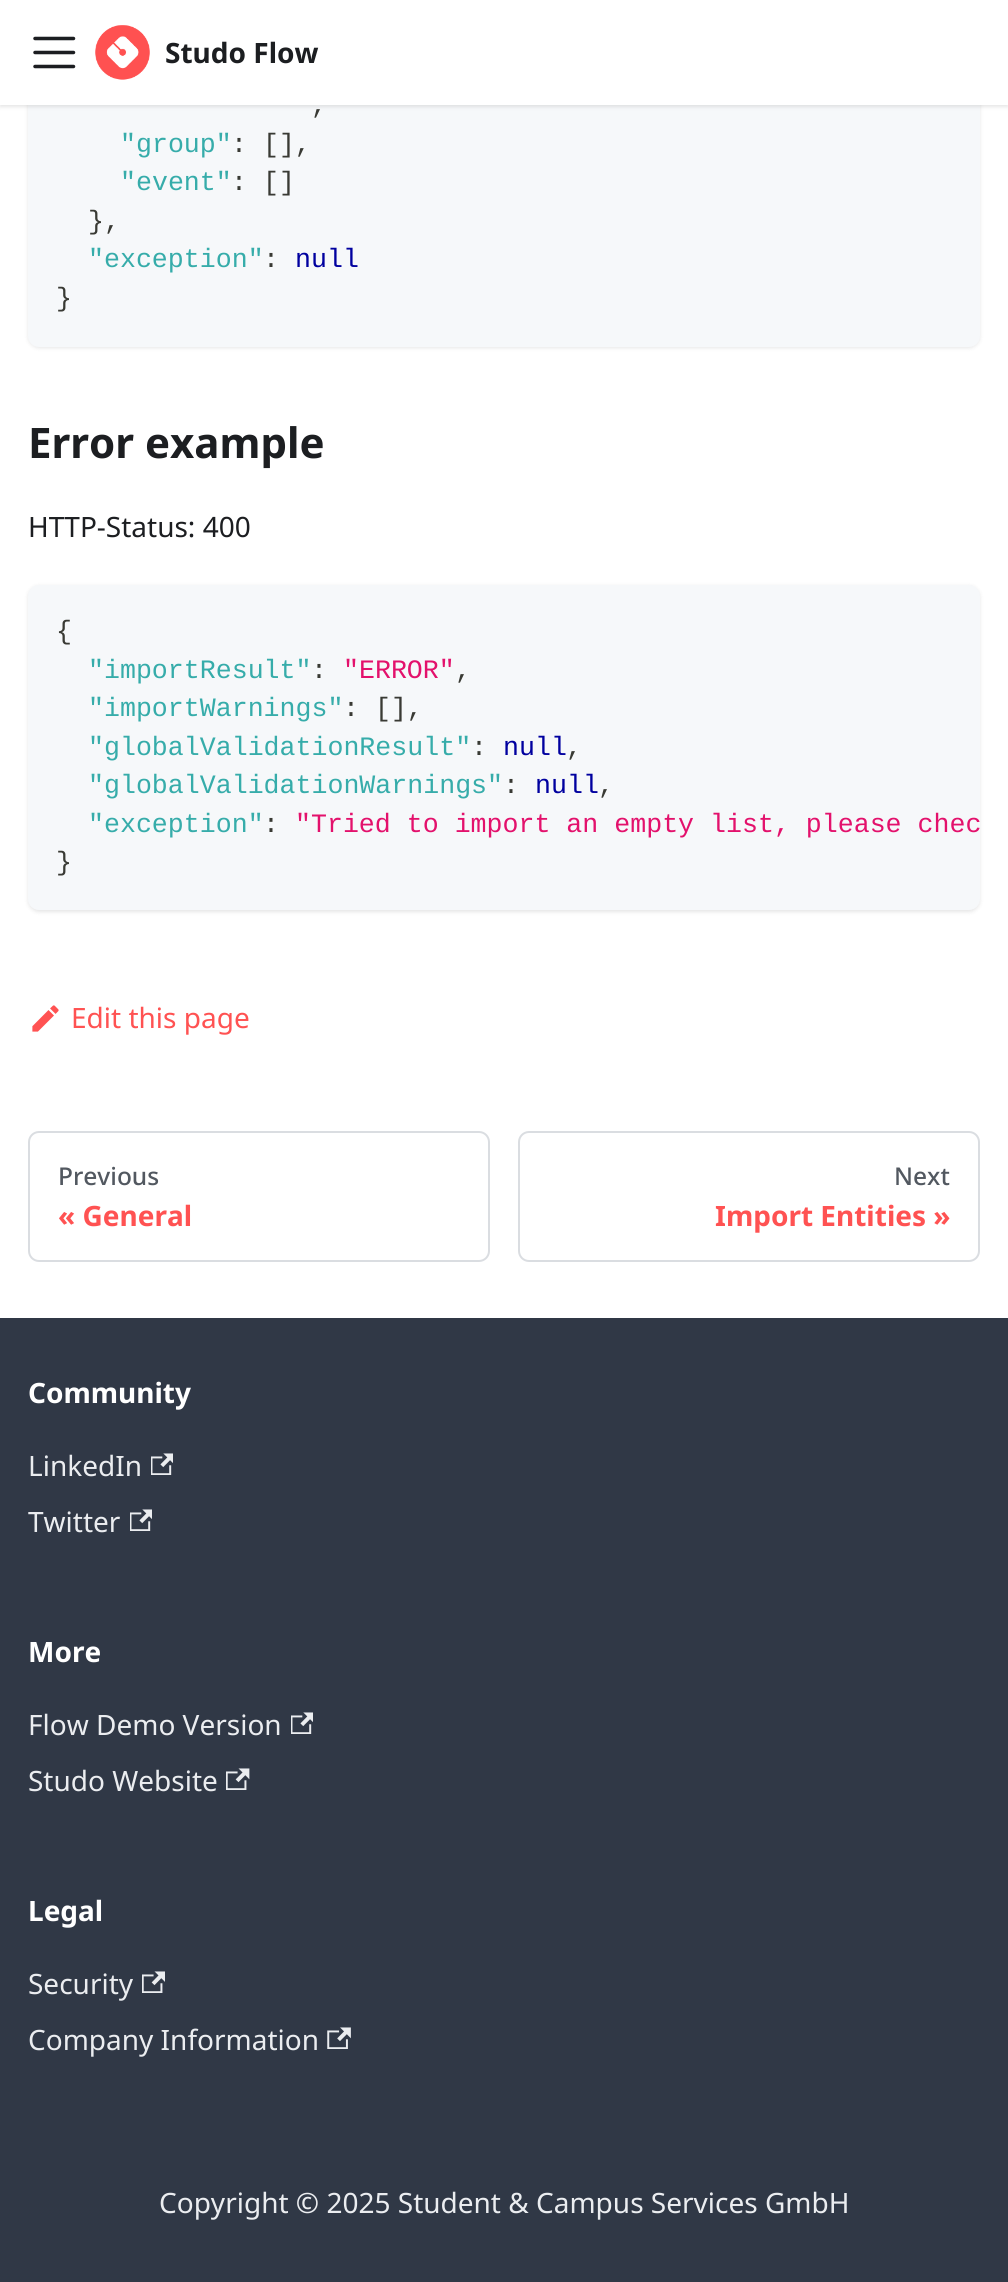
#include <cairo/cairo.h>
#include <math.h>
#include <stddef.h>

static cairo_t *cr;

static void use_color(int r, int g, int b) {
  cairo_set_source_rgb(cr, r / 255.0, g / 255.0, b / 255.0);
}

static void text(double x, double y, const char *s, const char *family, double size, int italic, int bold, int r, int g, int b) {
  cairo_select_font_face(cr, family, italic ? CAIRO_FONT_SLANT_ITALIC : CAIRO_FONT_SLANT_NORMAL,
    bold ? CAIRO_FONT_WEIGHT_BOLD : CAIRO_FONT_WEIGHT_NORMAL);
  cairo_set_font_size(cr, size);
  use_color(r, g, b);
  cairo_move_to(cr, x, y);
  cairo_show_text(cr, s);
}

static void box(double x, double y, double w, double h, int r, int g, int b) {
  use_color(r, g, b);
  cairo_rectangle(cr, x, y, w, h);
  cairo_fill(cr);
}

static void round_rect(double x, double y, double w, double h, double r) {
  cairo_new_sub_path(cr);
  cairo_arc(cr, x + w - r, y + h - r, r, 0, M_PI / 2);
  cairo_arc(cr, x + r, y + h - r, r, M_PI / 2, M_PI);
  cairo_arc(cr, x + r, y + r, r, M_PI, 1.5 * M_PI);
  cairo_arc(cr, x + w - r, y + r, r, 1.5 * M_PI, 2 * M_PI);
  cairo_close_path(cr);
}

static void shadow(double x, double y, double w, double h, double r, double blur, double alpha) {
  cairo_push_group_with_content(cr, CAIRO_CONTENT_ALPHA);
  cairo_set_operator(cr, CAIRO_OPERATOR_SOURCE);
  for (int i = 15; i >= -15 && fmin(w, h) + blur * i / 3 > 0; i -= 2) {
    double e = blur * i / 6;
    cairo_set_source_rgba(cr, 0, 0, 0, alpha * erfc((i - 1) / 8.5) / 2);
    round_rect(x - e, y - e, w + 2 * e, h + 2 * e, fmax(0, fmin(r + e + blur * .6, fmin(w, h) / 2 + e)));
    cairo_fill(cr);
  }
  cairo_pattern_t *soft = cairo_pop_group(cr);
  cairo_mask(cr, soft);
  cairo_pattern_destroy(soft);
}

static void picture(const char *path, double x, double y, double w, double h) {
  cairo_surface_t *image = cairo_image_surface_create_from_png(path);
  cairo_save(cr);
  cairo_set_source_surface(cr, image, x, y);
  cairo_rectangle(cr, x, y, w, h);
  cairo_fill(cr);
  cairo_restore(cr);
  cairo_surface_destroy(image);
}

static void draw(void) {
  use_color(255, 255, 255);
  cairo_paint(cr);
  use_color(0, 0, 0);
  shadow(28, -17, 952, 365, 11, 2, 0.1);
  use_color(246, 248, 250);
  round_rect(28, -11, 952, 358, 11);
  cairo_fill(cr);
  use_color(0, 0, 0);
  shadow(0, 2, 1008, 105, 0, 2, 0.1);
  box(0, 0, 1008, 105, 255, 255, 255);
  cairo_new_path(cr);
  cairo_move_to(cr, 35, 38.5);
  cairo_line_to(cr, 73.5, 38.5);
  cairo_move_to(cr, 35, 52.5);
  cairo_line_to(cr, 73.5, 52.5);
  cairo_move_to(cr, 35, 66.5);
  cairo_line_to(cr, 73.5, 66.5);
  use_color(28, 30, 33);
  cairo_set_line_width(cr, 3.5);
  cairo_set_line_cap(cr, CAIRO_LINE_CAP_ROUND);
  cairo_stroke(cr);
  picture("img_01.png", 95, 25, 55, 55);
  use_color(0, 0, 0);
  shadow(28, 586, 952, 326, 11, 2, 0.1);
  use_color(246, 248, 250);
  round_rect(28, 585, 952, 325, 11);
  cairo_fill(cr);
  picture("img_02.png", 32, 1005, 27, 27);
  round_rect(29, 1132, 460, 129, 10);
  use_color(218, 221, 225);
  cairo_set_line_width(cr, 2);
  cairo_set_line_cap(cr, CAIRO_LINE_CAP_BUTT);
  cairo_stroke(cr);
  round_rect(519, 1132, 460, 129, 10);
  cairo_stroke(cr);
  box(0, 1318, 1008, 964, 48, 56, 70);
  picture("img_03.png", 151, 1453, 22, 22);
  picture("img_03.png", 130, 1509, 22, 22);
  picture("img_03.png", 291, 1712, 22, 22);
  picture("img_04.png", 226, 1768, 24, 22);
  picture("img_05.png", 142, 1971, 23, 22);
  picture("img_06.png", 327, 2027, 24, 22);
  text(165, 63, "Studo Flow", "Noto Sans", 28, 0, 1, 28, 30, 33);
  text(311, 113, ",", "Liberation Mono", 26.6, 0, 0, 57, 58, 52);
  text(120, 152, "\"group\"", "Liberation Mono", 26.6, 0, 0, 54, 172, 170);
  text(231, 152, ": [],", "Liberation Mono", 26.6, 0, 0, 57, 58, 52);
  text(120, 190, "\"event\"", "Liberation Mono", 26.6, 0, 0, 54, 172, 170);
  text(231, 190, ": []", "Liberation Mono", 26.6, 0, 0, 57, 58, 52);
  text(88, 229, "},", "Liberation Mono", 26.6, 0, 0, 57, 58, 52);
  text(88, 267, "\"exception\"", "Liberation Mono", 26.6, 0, 0, 54, 172, 170);
  text(263, 267, ":", "Liberation Mono", 26.6, 0, 0, 57, 58, 52);
  text(295, 267, "null", "Liberation Mono", 26.6, 0, 0, 0, 0, 159);
  text(56, 306, "}", "Liberation Mono", 26.6, 0, 0, 57, 58, 52);
  text(28, 458, "Error example", "Noto Sans", 42, 0, 1, 28, 30, 33);
  text(28, 537, "HTTP-Status: 400", "Noto Sans", 28, 0, 0, 28, 30, 33);
  text(56, 639, "{", "Liberation Mono", 26.6, 0, 0, 57, 58, 52);
  text(88, 678, "\"importResult\"", "Liberation Mono", 26.6, 0, 0, 54, 172, 170);
  text(311, 678, ":", "Liberation Mono", 26.6, 0, 0, 57, 58, 52);
  text(343, 678, "\"ERROR\"", "Liberation Mono", 26.6, 0, 0, 227, 17, 108);
  text(455, 678, ",", "Liberation Mono", 26.6, 0, 0, 57, 58, 52);
  text(88, 716, "\"importWarnings\"", "Liberation Mono", 26.6, 0, 0, 54, 172, 170);
  text(343, 716, ": [],", "Liberation Mono", 26.6, 0, 0, 57, 58, 52);
  text(88, 755, "\"globalValidationResult\"", "Liberation Mono", 26.6, 0, 0, 54, 172, 170);
  text(471, 755, ":", "Liberation Mono", 26.6, 0, 0, 57, 58, 52);
  text(503, 755, "null", "Liberation Mono", 26.6, 0, 0, 0, 0, 159);
  text(566, 755, ",", "Liberation Mono", 26.6, 0, 0, 57, 58, 52);
  text(88, 793, "\"globalValidationWarnings\"", "Liberation Mono", 26.6, 0, 0, 54, 172, 170);
  text(503, 793, ":", "Liberation Mono", 26.6, 0, 0, 57, 58, 52);
  text(535, 793, "null", "Liberation Mono", 26.6, 0, 0, 0, 0, 159);
  text(598, 793, ",", "Liberation Mono", 26.6, 0, 0, 57, 58, 52);
  text(88, 832, "\"exception\"", "Liberation Mono", 26.6, 0, 0, 54, 172, 170);
  text(263, 832, ":", "Liberation Mono", 26.6, 0, 0, 57, 58, 52);
  text(295, 832, "\"Tried to import an empty list, please chec", "Liberation Mono", 26.6, 0, 0, 227, 17, 108);
  text(56, 870, "}", "Liberation Mono", 26.6, 0, 0, 57, 58, 52);
  text(71, 1028, "Edit this page", "Noto Sans", 28, 0, 0, 255, 82, 82);
  text(58, 1185, "Previous", "Noto Sans Medium", 24.5, 0, 0, 82, 88, 96);
  text(58, 1226, "« General", "Noto Sans", 28, 0, 1, 255, 82, 82);
  text(894, 1185, "Next", "Noto Sans Medium", 24.5, 0, 0, 82, 88, 96);
  text(715, 1226, "Import Entities »", "Noto Sans", 28, 0, 1, 255, 82, 82);
  text(28, 1403, "Community", "Noto Sans", 28, 0, 1, 255, 255, 255);
  text(28, 1476, "LinkedIn", "Noto Sans", 28, 0, 0, 235, 237, 240);
  text(28, 1532, "Twitter", "Noto Sans", 28, 0, 0, 235, 237, 240);
  text(28, 1662, "More", "Noto Sans", 28, 0, 1, 255, 255, 255);
  text(28, 1735, "Flow Demo Version", "Noto Sans", 28, 0, 0, 235, 237, 240);
  text(28, 1791, "Studo Website", "Noto Sans", 28, 0, 0, 235, 237, 240);
  text(28, 1921, "Legal", "Noto Sans", 28, 0, 1, 255, 255, 255);
  text(28, 1994, "Security", "Noto Sans", 28, 0, 0, 235, 237, 240);
  text(28, 2050, "Company Information", "Noto Sans", 28, 0, 0, 235, 237, 240);
  text(159, 2213, "Copyright © 2025 Student & Campus Services GmbH", "Noto Sans", 28, 0, 0, 235, 237, 240);
}

int main(void) {
  cairo_surface_t *surface = cairo_image_surface_create(CAIRO_FORMAT_RGB24, 1008, 2282);
  cr = cairo_create(surface);
  cairo_font_options_t *options = cairo_font_options_create();
  cairo_font_options_set_hint_metrics(options, CAIRO_HINT_METRICS_OFF);
  cairo_font_options_set_hint_style(options, CAIRO_HINT_STYLE_NONE);
  cairo_set_font_options(cr, options);
  cairo_set_miter_limit(cr, 4);
  draw();
  cairo_surface_write_to_png(surface, "out.png");
  cairo_font_options_destroy(options);
  cairo_destroy(cr);
  cairo_surface_destroy(surface);
  return 0;
}
